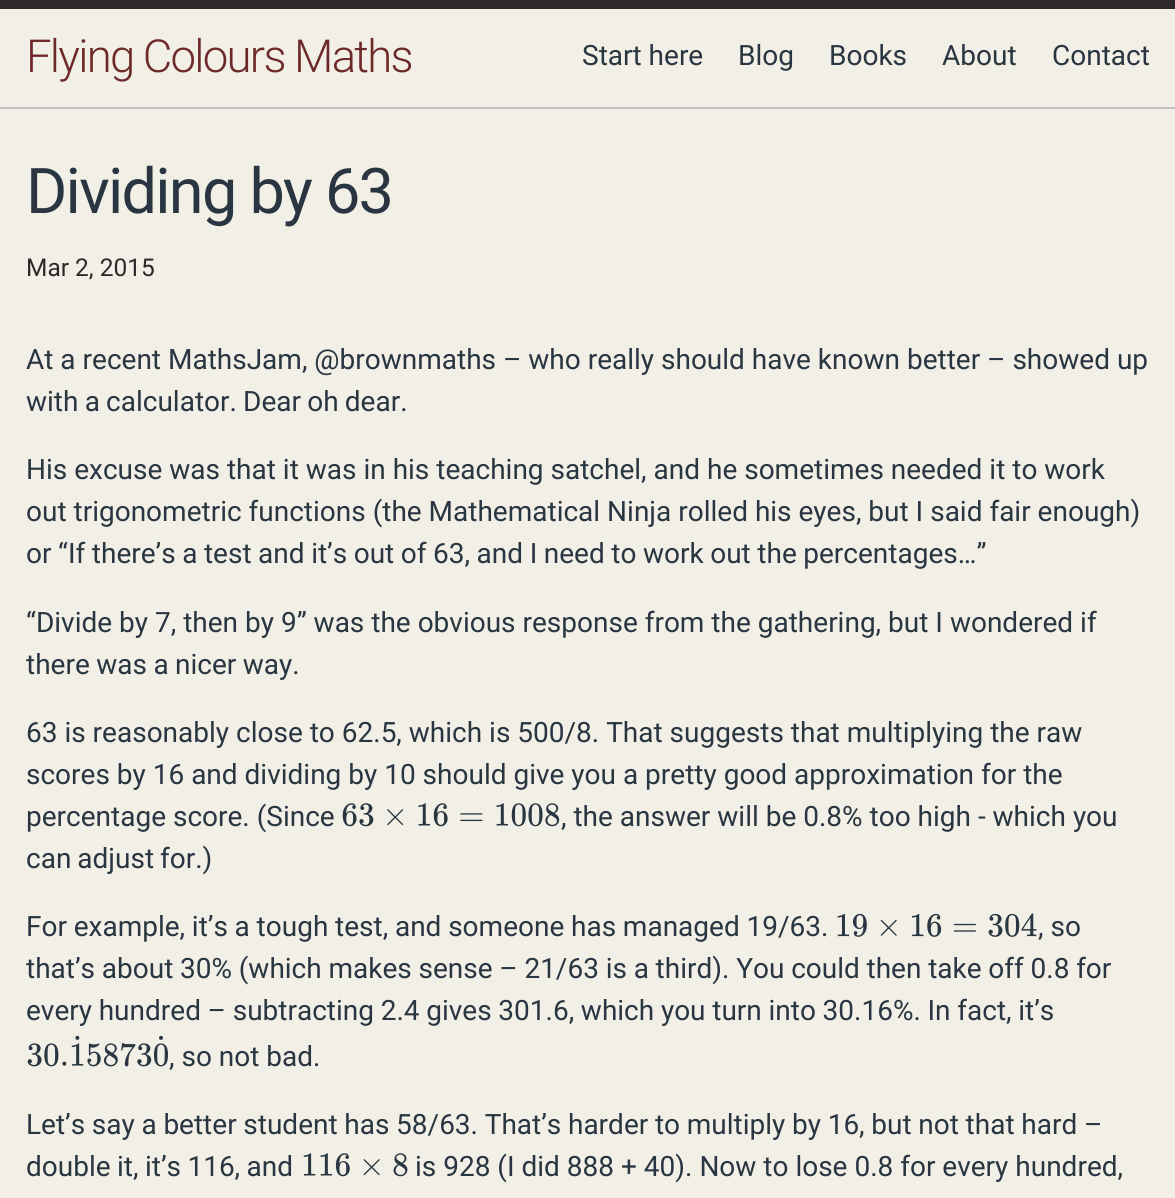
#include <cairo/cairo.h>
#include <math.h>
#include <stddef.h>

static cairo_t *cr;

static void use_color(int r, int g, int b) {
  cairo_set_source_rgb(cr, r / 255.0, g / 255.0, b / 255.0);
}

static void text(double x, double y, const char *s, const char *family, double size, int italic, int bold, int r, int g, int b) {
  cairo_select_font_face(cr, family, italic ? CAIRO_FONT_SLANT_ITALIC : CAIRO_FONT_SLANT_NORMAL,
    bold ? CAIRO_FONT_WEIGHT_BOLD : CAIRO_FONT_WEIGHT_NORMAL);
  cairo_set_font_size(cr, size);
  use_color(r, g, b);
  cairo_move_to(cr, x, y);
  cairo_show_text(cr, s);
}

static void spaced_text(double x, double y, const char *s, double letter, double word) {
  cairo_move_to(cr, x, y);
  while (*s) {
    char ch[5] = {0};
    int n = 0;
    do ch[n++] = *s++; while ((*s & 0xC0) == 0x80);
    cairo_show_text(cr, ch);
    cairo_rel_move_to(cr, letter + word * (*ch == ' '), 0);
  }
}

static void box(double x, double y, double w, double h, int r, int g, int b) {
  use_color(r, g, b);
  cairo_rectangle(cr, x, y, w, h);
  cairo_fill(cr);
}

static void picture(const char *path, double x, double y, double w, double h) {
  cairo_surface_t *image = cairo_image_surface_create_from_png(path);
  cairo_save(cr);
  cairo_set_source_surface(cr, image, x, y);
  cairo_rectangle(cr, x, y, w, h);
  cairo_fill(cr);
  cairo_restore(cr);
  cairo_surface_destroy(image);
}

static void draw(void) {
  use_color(241, 239, 230);
  cairo_paint(cr);
  box(0, 0, 1175, 9, 45, 41, 42);
  box(0, 107, 1175, 2, 199, 193, 195);
  picture("img_01.png", 342, 803, 218, 24);
  picture("img_02.png", 837, 913, 200, 24);
  picture("img_03.png", 27, 1035, 141, 32);
  picture("img_04.png", 303, 1153, 105, 24);
  cairo_select_font_face(cr, "Roboto Light", CAIRO_FONT_SLANT_NORMAL, CAIRO_FONT_WEIGHT_NORMAL);
  cairo_set_font_size(cr, 45.5);
  use_color(109, 41, 42);
  spaced_text(26, 72, "Flying Colours Maths", -1.75, 0);
  text(582, 65, "Start here", "Roboto", 28, 0, 0, 41, 54, 65);
  text(738, 65, "Blog", "Roboto", 28, 0, 0, 41, 54, 65);
  text(829, 65, "Books", "Roboto", 28, 0, 0, 41, 54, 65);
  text(942, 65, "About", "Roboto", 28, 0, 0, 41, 54, 65);
  text(1052, 65, "Contact", "Roboto", 28, 0, 0, 41, 54, 65);
  cairo_set_font_size(cr, 63);
  spaced_text(26, 213, "Dividing by 63", -1.75, 0);
  text(26, 276, "Mar 2, 2015", "Roboto", 24.5, 0, 0, 45, 41, 42);
  text(26, 369, "At a recent MathsJam, @brownmaths – who really should have known better – showed up", "Roboto", 28, 0, 0, 41, 54, 65);
  spaced_text(26, 411, "with a calculator. Dear oh dear.", 0, -0.75);
  text(26, 479, "His excuse was that it was in his teaching satchel, and he sometimes needed it to work", "Roboto", 28, 0, 0, 41, 54, 65);
  text(26, 521, "out trigonometric functions (the Mathematical Ninja rolled his eyes, but I said fair enough)", "Roboto", 28, 0, 0, 41, 54, 65);
  spaced_text(26, 563, "or “If there’s a test and it’s out of 63, and I need to work out the percentages…”", 0, -0.4);
  text(26, 632, "“Divide by 7, then by 9” was the obvious response from the gathering, but I wondered if", "Roboto", 28, 0, 0, 41, 54, 65);
  spaced_text(26, 674, "there was a nicer way.", 0, -0.5);
  text(26, 742, "63 is reasonably close to 62.5, which is 500/8. That suggests that multiplying the raw", "Roboto", 28, 0, 0, 41, 54, 65);
  text(26, 784, "scores by 16 and dividing by 10 should give you a pretty good approximation for the", "Roboto", 28, 0, 0, 41, 54, 65);
  text(26, 826, "percentage score. (Since", "Roboto", 28, 0, 0, 41, 54, 65);
  text(561, 826, ", the answer will be 0.8% too high - which you", "Roboto", 28, 0, 0, 41, 54, 65);
  spaced_text(26, 868, "can adjust for.)", 0, -1);
  spaced_text(26, 936, "For example, it’s a tough test, and someone has managed 19/63.", 0, -0.2);
  text(1038, 936, ", so", "Roboto", 28, 0, 0, 41, 54, 65);
  spaced_text(26, 978, "that’s about 30% (which makes sense – 21/63 is a third). You could then take off 0.8 for", 0, -0.2);
  spaced_text(26, 1020, "every hundred – subtracting 2.4 gives 301.6, which you turn into 30.16%. In fact, it’s", 0, -0.25);
  text(169, 1066, ", so not bad.", "Roboto", 28, 0, 0, 41, 54, 65);
  spaced_text(26, 1134, "Let’s say a better student has 58/63. That’s harder to multiply by 16, but not that hard –", 0, -0.25);
  spaced_text(26, 1176, "double it, it’s 116, and", 0, -0.5);
  text(415, 1176, "is 928 (I did 888 + 40). Now to lose 0.8 for every hundred,", "Roboto", 28, 0, 0, 41, 54, 65);
}

int main(void) {
  cairo_surface_t *surface = cairo_image_surface_create(CAIRO_FORMAT_RGB24, 1175, 1198);
  cr = cairo_create(surface);
  cairo_font_options_t *options = cairo_font_options_create();
  cairo_font_options_set_hint_metrics(options, CAIRO_HINT_METRICS_OFF);
  cairo_font_options_set_hint_style(options, CAIRO_HINT_STYLE_NONE);
  cairo_set_font_options(cr, options);
  cairo_set_miter_limit(cr, 4);
  draw();
  cairo_surface_write_to_png(surface, "out.png");
  cairo_font_options_destroy(options);
  cairo_destroy(cr);
  cairo_surface_destroy(surface);
  return 0;
}
